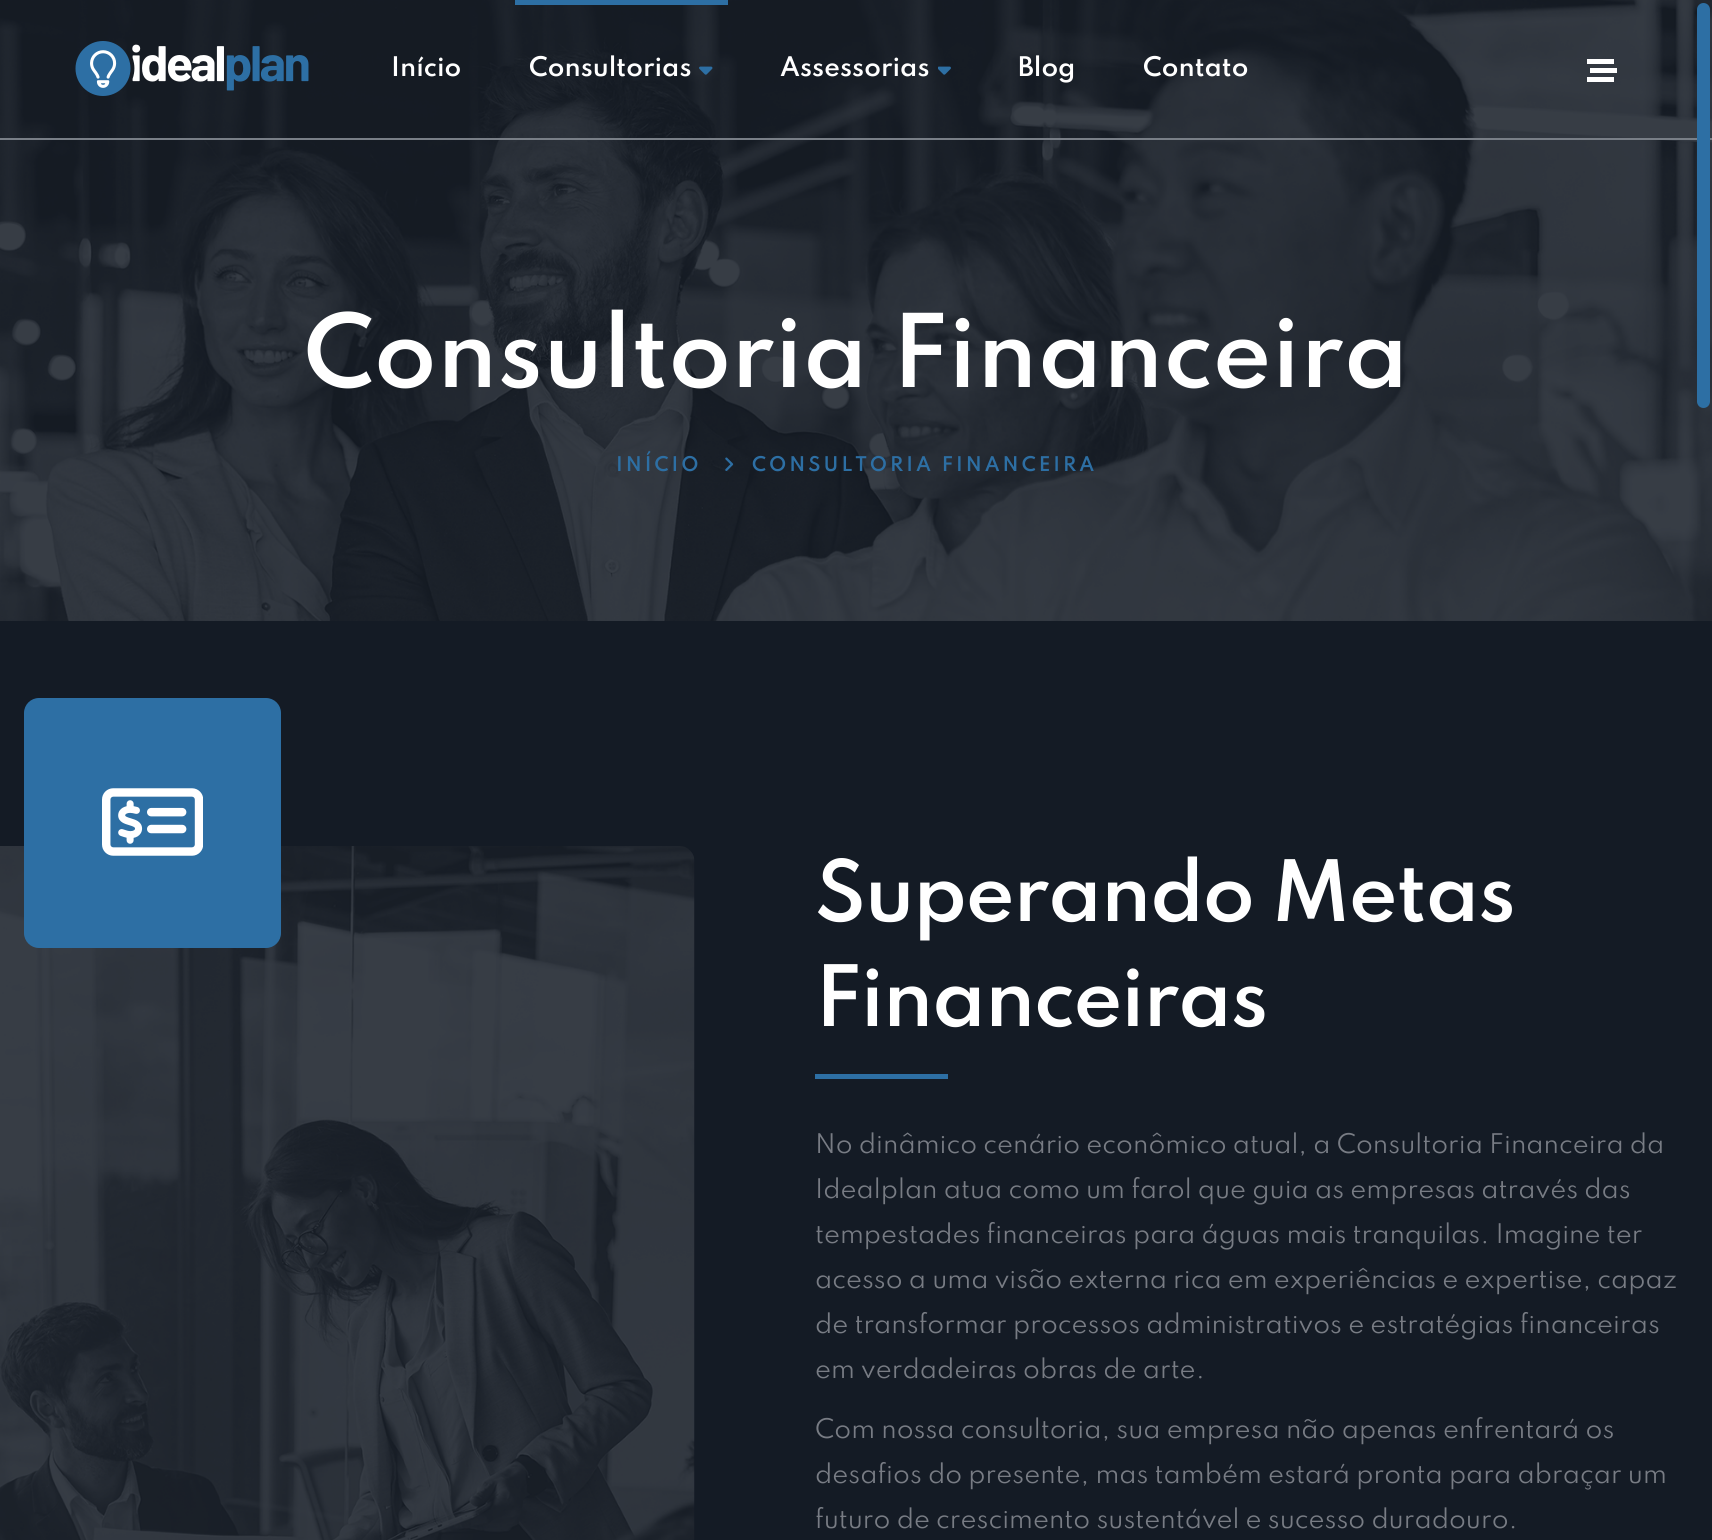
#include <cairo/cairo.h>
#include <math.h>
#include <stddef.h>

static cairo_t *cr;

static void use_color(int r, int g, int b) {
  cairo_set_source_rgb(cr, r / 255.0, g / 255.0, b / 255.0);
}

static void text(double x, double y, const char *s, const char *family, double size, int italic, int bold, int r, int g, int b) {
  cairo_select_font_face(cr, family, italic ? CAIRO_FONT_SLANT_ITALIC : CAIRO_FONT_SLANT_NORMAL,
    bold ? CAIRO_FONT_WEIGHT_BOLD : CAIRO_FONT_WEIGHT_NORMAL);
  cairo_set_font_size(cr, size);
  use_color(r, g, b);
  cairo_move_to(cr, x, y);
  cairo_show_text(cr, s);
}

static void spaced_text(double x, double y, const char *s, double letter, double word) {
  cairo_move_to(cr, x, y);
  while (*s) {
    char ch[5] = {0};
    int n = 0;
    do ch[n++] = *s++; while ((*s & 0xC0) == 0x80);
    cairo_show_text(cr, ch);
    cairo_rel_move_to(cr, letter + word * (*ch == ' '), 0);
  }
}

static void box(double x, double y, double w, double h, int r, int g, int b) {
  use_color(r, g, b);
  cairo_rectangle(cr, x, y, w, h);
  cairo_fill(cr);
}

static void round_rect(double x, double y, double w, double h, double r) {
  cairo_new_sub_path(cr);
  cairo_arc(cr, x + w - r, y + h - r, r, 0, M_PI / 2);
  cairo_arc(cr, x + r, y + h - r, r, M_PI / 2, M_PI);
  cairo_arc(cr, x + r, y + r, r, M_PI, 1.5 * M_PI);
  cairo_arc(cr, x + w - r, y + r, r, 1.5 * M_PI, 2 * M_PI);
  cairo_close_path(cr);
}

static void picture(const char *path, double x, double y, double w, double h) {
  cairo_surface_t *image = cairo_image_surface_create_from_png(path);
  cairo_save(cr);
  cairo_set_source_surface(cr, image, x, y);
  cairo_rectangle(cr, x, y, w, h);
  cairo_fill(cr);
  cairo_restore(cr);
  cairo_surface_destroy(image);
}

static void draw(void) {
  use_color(255, 255, 255);
  cairo_paint(cr);
  picture("img_04.png", 0, 0, 1712, 621);
  box(0, 138, 1712, 2, 121, 127, 135);
  picture("img_01.png", 75, 41, 234, 55);
  box(515, 0, 213, 5, 45, 111, 164);
  picture("img_02.png", 699, 66, 14, 9);
  picture("img_03.png", 938, 66, 13, 9);
  box(1587, 59, 27, 5, 255, 255, 255);
  box(1590, 68, 27, 5, 255, 255, 255);
  box(1587, 77, 27, 5, 255, 255, 255);
  picture("img_05.png", 725, 457, 9, 14);
  box(0, 621, 1712, 919, 20, 27, 37);
  picture("img_07.png", 0, 846, 695, 694);
  use_color(45, 111, 164);
  round_rect(24, 698, 257, 250, 15);
  cairo_fill(cr);
  picture("img_06.png", 102, 788, 101, 68);
  box(815, 1074, 133, 5, 45, 111, 164);
  round_rect(1697, 3, 13, 405, 6.5);
  cairo_fill(cr);
  text(391, 76, "Início", "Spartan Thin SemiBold", 24, 0, 0, 255, 255, 255);
  text(529, 76, "Consultorias", "Spartan Thin SemiBold", 24, 0, 0, 255, 255, 255);
  text(780, 76, "Assessorias", "Spartan Thin SemiBold", 24, 0, 0, 255, 255, 255);
  text(1018, 76, "Blog", "Spartan Thin SemiBold", 24, 0, 0, 255, 255, 255);
  text(1143, 76, "Contato", "Spartan Thin SemiBold", 24, 0, 0, 255, 255, 255);
  text(304, 387, "Consultoria Financeira", "Spartan Thin SemiBold", 90, 0, 0, 255, 255, 255);
  cairo_set_font_size(cr, 18);
  use_color(45, 111, 164);
  spaced_text(616, 471, "INÍCIO", 3, 0);
  spaced_text(752, 471, "CONSULTORIA FINANCEIRA", 3, 0);
  cairo_set_font_size(cr, 75);
  use_color(255, 255, 255);
  spaced_text(815, 921, "Superando Metas", -1.5, 0);
  spaced_text(815, 1026, "Financeiras", -1.5, 0);
  text(815, 1153, "No dinâmico cenário econômico atual, a Consultoria Financeira da", "Spartan Thin Thin", 24, 0, 0, 120, 124, 132);
  text(815, 1198, "Idealplan atua como um farol que guia as empresas através das", "Spartan Thin Thin", 24, 0, 0, 120, 124, 132);
  text(815, 1243, "tempestades financeiras para águas mais tranquilas. Imagine ter", "Spartan Thin Thin", 24, 0, 0, 120, 124, 132);
  text(815, 1288, "acesso a uma visão externa rica em experiências e expertise, capaz", "Spartan Thin Thin", 24, 0, 0, 120, 124, 132);
  text(815, 1333, "de transformar processos administrativos e estratégias financeiras", "Spartan Thin Thin", 24, 0, 0, 120, 124, 132);
  text(815, 1378, "em verdadeiras obras de arte.", "Spartan Thin Thin", 24, 0, 0, 120, 124, 132);
  text(815, 1438, "Com nossa consultoria, sua empresa não apenas enfrentará os", "Spartan Thin Thin", 24, 0, 0, 120, 124, 132);
  text(815, 1483, "desafios do presente, mas também estará pronta para abraçar um", "Spartan Thin Thin", 24, 0, 0, 120, 124, 132);
  text(815, 1528, "futuro de crescimento sustentável e sucesso duradouro.", "Spartan Thin Thin", 24, 0, 0, 120, 124, 132);
}

int main(void) {
  cairo_surface_t *surface = cairo_image_surface_create(CAIRO_FORMAT_RGB24, 1712, 1540);
  cr = cairo_create(surface);
  cairo_font_options_t *options = cairo_font_options_create();
  cairo_font_options_set_hint_metrics(options, CAIRO_HINT_METRICS_OFF);
  cairo_font_options_set_hint_style(options, CAIRO_HINT_STYLE_NONE);
  cairo_set_font_options(cr, options);
  cairo_set_miter_limit(cr, 4);
  draw();
  cairo_surface_write_to_png(surface, "out.png");
  cairo_font_options_destroy(options);
  cairo_destroy(cr);
  cairo_surface_destroy(surface);
  return 0;
}
